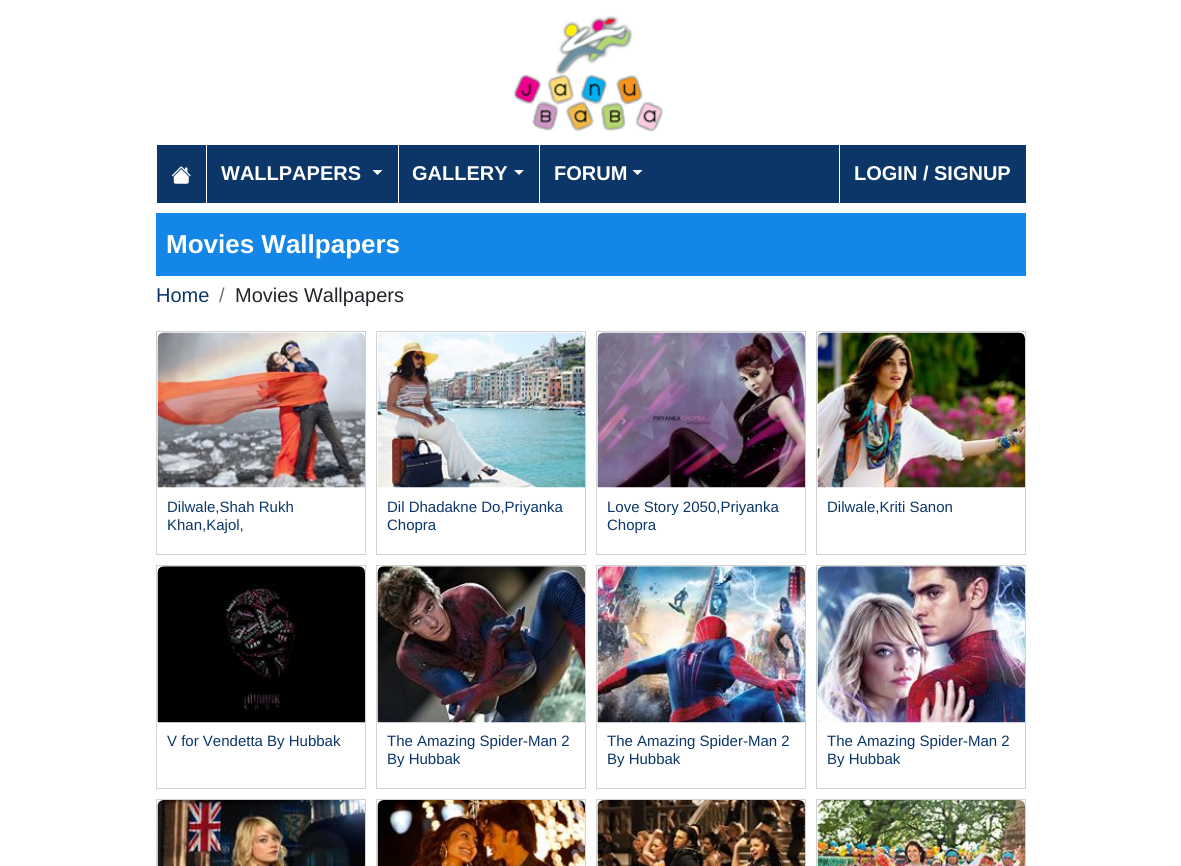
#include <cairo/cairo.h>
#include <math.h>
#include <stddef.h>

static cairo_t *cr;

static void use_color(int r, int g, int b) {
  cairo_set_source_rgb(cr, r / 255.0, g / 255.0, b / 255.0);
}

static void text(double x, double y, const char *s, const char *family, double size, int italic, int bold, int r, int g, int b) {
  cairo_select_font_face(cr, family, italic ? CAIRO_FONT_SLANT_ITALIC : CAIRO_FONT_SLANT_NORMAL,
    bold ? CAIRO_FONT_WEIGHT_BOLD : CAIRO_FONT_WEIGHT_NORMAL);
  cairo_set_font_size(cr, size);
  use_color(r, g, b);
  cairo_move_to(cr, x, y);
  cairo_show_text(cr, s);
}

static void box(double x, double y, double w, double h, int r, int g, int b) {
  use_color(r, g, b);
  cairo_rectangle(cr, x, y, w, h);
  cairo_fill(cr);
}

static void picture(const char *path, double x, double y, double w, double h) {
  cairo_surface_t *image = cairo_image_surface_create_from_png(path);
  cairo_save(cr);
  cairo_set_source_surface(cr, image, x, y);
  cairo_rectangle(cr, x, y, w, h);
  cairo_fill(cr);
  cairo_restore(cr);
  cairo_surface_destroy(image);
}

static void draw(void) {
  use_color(255, 255, 255);
  cairo_paint(cr);
  picture("img_01.png", 513, 15, 150, 117);
  box(157, 145, 869, 58, 11, 54, 103);
  picture("img_02.png", 171, 166, 20, 18);
  box(206, 145, 1, 58, 255, 255, 255);
  cairo_new_path(cr);
  cairo_move_to(cr, 372.5, 170);
  cairo_line_to(cr, 382.5, 170);
  cairo_line_to(cr, 377.5, 175);
  cairo_close_path(cr);
  cairo_fill(cr);
  box(398, 145, 1, 58, 255, 255, 255);
  cairo_new_path(cr);
  cairo_move_to(cr, 514, 170);
  cairo_line_to(cr, 524, 170);
  cairo_line_to(cr, 519, 175);
  cairo_close_path(cr);
  cairo_fill(cr);
  box(539, 145, 1, 58, 255, 255, 255);
  cairo_new_path(cr);
  cairo_move_to(cr, 632.5, 170);
  cairo_line_to(cr, 642.5, 170);
  cairo_line_to(cr, 637.5, 175);
  cairo_close_path(cr);
  cairo_fill(cr);
  box(839, 145, 1, 58, 255, 255, 255);
  box(156, 213, 870, 63, 19, 134, 231);
  cairo_rectangle(cr, 156.5, 331.5, 209, 223);
  use_color(210, 210, 210);
  cairo_set_line_width(cr, 1);
  cairo_stroke(cr);
  picture("img_03.png", 157, 332, 208, 156);
  cairo_rectangle(cr, 376.5, 331.5, 209, 223);
  cairo_stroke(cr);
  picture("img_04.png", 377, 332, 208, 156);
  cairo_rectangle(cr, 596.5, 331.5, 209, 223);
  cairo_stroke(cr);
  picture("img_05.png", 597, 332, 208, 156);
  cairo_rectangle(cr, 816.5, 331.5, 209, 223);
  cairo_stroke(cr);
  picture("img_06.png", 817, 332, 208, 156);
  cairo_rectangle(cr, 156.5, 565.5, 209, 223);
  cairo_stroke(cr);
  picture("img_07.png", 157, 566, 208, 157);
  cairo_rectangle(cr, 376.5, 565.5, 209, 223);
  cairo_stroke(cr);
  picture("img_08.png", 377, 566, 208, 157);
  cairo_rectangle(cr, 596.5, 565.5, 209, 223);
  cairo_stroke(cr);
  picture("img_09.png", 597, 566, 208, 157);
  cairo_rectangle(cr, 816.5, 565.5, 209, 223);
  cairo_stroke(cr);
  picture("img_10.png", 817, 566, 208, 157);
  cairo_rectangle(cr, 156.5, 799.5, 209, 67);
  cairo_stroke(cr);
  picture("img_11.png", 157, 800, 208, 66);
  cairo_rectangle(cr, 376.5, 799.5, 209, 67);
  cairo_stroke(cr);
  picture("img_12.png", 377, 800, 208, 66);
  cairo_rectangle(cr, 596.5, 799.5, 209, 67);
  cairo_stroke(cr);
  picture("img_13.png", 597, 800, 208, 66);
  cairo_rectangle(cr, 816.5, 799.5, 209, 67);
  cairo_stroke(cr);
  picture("img_14.png", 817, 800, 208, 66);
  text(221, 180, "WALLPAPERS", "Liberation Sans", 20, 0, 1, 255, 255, 255);
  text(412, 180, "GALLERY", "Liberation Sans", 20, 0, 1, 255, 255, 255);
  text(554, 180, "FORUM", "Liberation Sans", 20, 0, 1, 255, 255, 255);
  text(854, 180, "LOGIN / SIGNUP", "Liberation Sans", 20, 0, 1, 255, 255, 255);
  text(166, 253, "Movies Wallpapers", "Liberation Sans", 26, 0, 1, 255, 255, 255);
  text(156, 302, "Home", "Liberation Sans", 20, 0, 0, 11, 54, 103);
  text(219, 302, "/", "Liberation Sans", 20, 0, 0, 108, 117, 125);
  text(235, 302, "Movies Wallpapers", "Liberation Sans", 20, 0, 0, 33, 37, 41);
  text(167, 512, "Dilwale,Shah Rukh", "Liberation Sans", 15, 0, 0, 11, 54, 103);
  text(167, 530, "Khan,Kajol,", "Liberation Sans", 15, 0, 0, 11, 54, 103);
  text(387, 512, "Dil Dhadakne Do,Priyanka", "Liberation Sans", 15, 0, 0, 11, 54, 103);
  text(387, 530, "Chopra", "Liberation Sans", 15, 0, 0, 11, 54, 103);
  text(607, 512, "Love Story 2050,Priyanka", "Liberation Sans", 15, 0, 0, 11, 54, 103);
  text(607, 530, "Chopra", "Liberation Sans", 15, 0, 0, 11, 54, 103);
  text(827, 512, "Dilwale,Kriti Sanon", "Liberation Sans", 15, 0, 0, 11, 54, 103);
  text(167, 746, "V for Vendetta By Hubbak", "Liberation Sans", 15, 0, 0, 11, 54, 103);
  text(387, 746, "The Amazing Spider-Man 2", "Liberation Sans", 15, 0, 0, 11, 54, 103);
  text(387, 764, "By Hubbak", "Liberation Sans", 15, 0, 0, 11, 54, 103);
  text(607, 746, "The Amazing Spider-Man 2", "Liberation Sans", 15, 0, 0, 11, 54, 103);
  text(607, 764, "By Hubbak", "Liberation Sans", 15, 0, 0, 11, 54, 103);
  text(827, 746, "The Amazing Spider-Man 2", "Liberation Sans", 15, 0, 0, 11, 54, 103);
  text(827, 764, "By Hubbak", "Liberation Sans", 15, 0, 0, 11, 54, 103);
}

int main(void) {
  cairo_surface_t *surface = cairo_image_surface_create(CAIRO_FORMAT_RGB24, 1181, 866);
  cr = cairo_create(surface);
  cairo_font_options_t *options = cairo_font_options_create();
  cairo_font_options_set_hint_metrics(options, CAIRO_HINT_METRICS_OFF);
  cairo_font_options_set_hint_style(options, CAIRO_HINT_STYLE_NONE);
  cairo_set_font_options(cr, options);
  cairo_set_miter_limit(cr, 4);
  draw();
  cairo_surface_write_to_png(surface, "out.png");
  cairo_font_options_destroy(options);
  cairo_destroy(cr);
  cairo_surface_destroy(surface);
  return 0;
}
